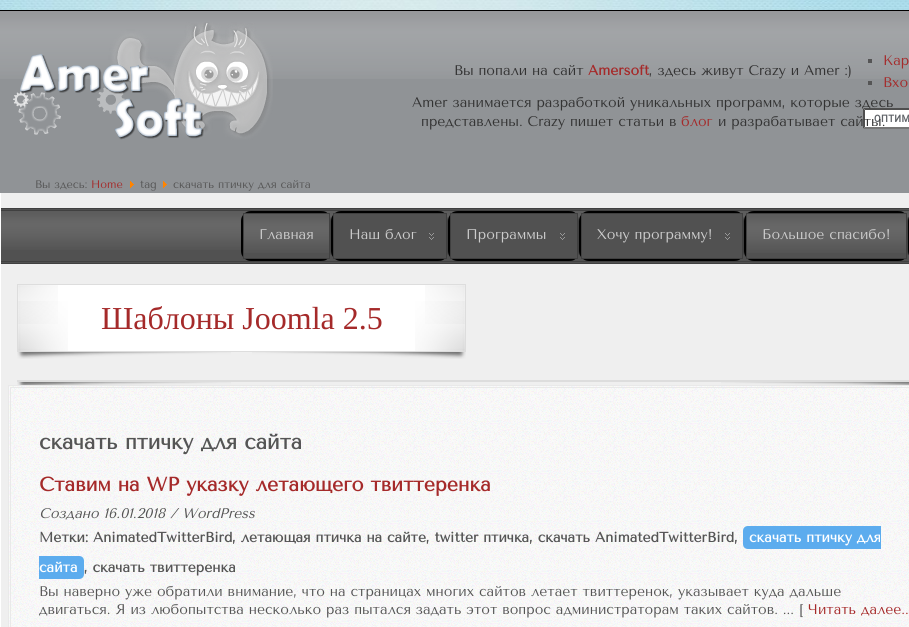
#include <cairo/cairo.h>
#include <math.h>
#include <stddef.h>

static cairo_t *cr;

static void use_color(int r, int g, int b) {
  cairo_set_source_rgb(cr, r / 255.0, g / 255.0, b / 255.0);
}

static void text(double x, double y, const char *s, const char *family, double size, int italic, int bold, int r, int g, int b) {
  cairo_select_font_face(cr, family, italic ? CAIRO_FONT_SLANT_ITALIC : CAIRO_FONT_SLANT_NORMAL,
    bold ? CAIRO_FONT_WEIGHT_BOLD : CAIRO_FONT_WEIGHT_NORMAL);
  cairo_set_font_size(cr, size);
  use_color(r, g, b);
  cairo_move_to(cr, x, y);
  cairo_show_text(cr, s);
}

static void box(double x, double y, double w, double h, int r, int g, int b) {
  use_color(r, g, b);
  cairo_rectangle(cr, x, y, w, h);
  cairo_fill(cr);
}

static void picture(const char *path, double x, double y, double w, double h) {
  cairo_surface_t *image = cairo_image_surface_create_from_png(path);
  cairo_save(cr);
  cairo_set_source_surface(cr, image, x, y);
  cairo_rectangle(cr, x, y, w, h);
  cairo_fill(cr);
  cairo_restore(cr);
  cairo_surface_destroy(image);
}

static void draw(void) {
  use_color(255, 255, 255);
  cairo_paint(cr);
  picture("img_01.png", 0, 0, 909, 10);
  box(1, 193, 908, 434, 239, 239, 239);
  box(0, 11, 909, 182, 144, 147, 150);
  picture("img_02.png", 0, 11, 909, 68);
  box(0, 10, 909, 1, 0, 0, 0);
  picture("img_03.png", 13, 22, 260, 118);
  box(868, 59, 4, 4, 85, 85, 85);
  box(868, 81, 4, 4, 85, 85, 85);
  box(863, 108, 46, 21, 255, 255, 255);
  picture("img_04.png", 874, 114, 35, 8);
  use_color(79, 79, 79);
  cairo_new_path(cr);
  cairo_move_to(cr, 863, 108);
  cairo_line_to(cr, 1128, 108);
  cairo_line_to(cr, 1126, 110);
  cairo_line_to(cr, 865, 110);
  cairo_close_path(cr);
  cairo_fill(cr);
  use_color(118, 118, 118);
  cairo_new_path(cr);
  cairo_move_to(cr, 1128, 129);
  cairo_line_to(cr, 863, 129);
  cairo_line_to(cr, 865, 127);
  cairo_line_to(cr, 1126, 127);
  cairo_close_path(cr);
  cairo_fill(cr);
  use_color(79, 79, 79);
  cairo_new_path(cr);
  cairo_move_to(cr, 863, 129);
  cairo_line_to(cr, 863, 108);
  cairo_line_to(cr, 865, 110);
  cairo_line_to(cr, 865, 127);
  cairo_close_path(cr);
  cairo_fill(cr);
  picture("img_05.png", 130, 181, 4, 7);
  picture("img_05.png", 163, 181, 4, 7);
  box(1, 209, 908, 54, 81, 81, 81);
  picture("img_06.png", 1, 211, 908, 39);
  box(1, 208, 908, 1, 64, 64, 64);
  box(1, 210, 908, 1, 64, 64, 64);
  box(1, 261, 908, 1, 64, 64, 64);
  box(1, 263, 908, 1, 64, 64, 64);
  use_color(0, 0, 0);
  cairo_new_path(cr);
  cairo_move_to(cr, 251, 211);
  cairo_curve_to(cr, 248, 211, 246, 212, 244, 214);
  cairo_line_to(cr, 246, 216);
  cairo_curve_to(cr, 247, 214, 249, 213, 251, 213);
  cairo_line_to(cr, 321, 213);
  cairo_curve_to(cr, 324, 213, 327, 214, 328, 216);
  cairo_line_to(cr, 329, 215);
  cairo_curve_to(cr, 327, 212, 325, 211, 321, 211);
  cairo_close_path(cr);
  cairo_fill(cr);
  use_color(64, 64, 64);
  cairo_new_path(cr);
  cairo_move_to(cr, 331, 251);
  cairo_line_to(cr, 331, 221);
  cairo_curve_to(cr, 331, 219, 330, 216, 329, 215);
  cairo_line_to(cr, 328, 216);
  cairo_curve_to(cr, 329, 218, 330, 219, 330, 221);
  cairo_line_to(cr, 330, 251);
  cairo_curve_to(cr, 330, 253, 329, 254, 328, 256);
  cairo_line_to(cr, 329, 257);
  cairo_curve_to(cr, 330, 256, 331, 253, 331, 251);
  cairo_close_path(cr);
  cairo_fill(cr);
  use_color(0, 0, 0);
  cairo_new_path(cr);
  cairo_move_to(cr, 251, 261);
  cairo_line_to(cr, 321, 261);
  cairo_curve_to(cr, 325, 261, 327, 260, 329, 257);
  cairo_line_to(cr, 328, 256);
  cairo_curve_to(cr, 327, 258, 324, 259, 321, 259);
  cairo_line_to(cr, 251, 259);
  cairo_curve_to(cr, 249, 259, 247, 258, 246, 256);
  cairo_line_to(cr, 244, 258);
  cairo_curve_to(cr, 246, 260, 248, 261, 251, 261);
  cairo_close_path(cr);
  cairo_fill(cr);
  cairo_new_path(cr);
  cairo_move_to(cr, 241, 221);
  cairo_line_to(cr, 241, 251);
  cairo_curve_to(cr, 241, 254, 242, 256, 244, 258);
  cairo_line_to(cr, 246, 256);
  cairo_curve_to(cr, 244, 255, 243, 253, 243, 251);
  cairo_line_to(cr, 243, 221);
  cairo_curve_to(cr, 243, 219, 244, 217, 246, 216);
  cairo_line_to(cr, 244, 214);
  cairo_curve_to(cr, 242, 216, 241, 218, 241, 221);
  cairo_close_path(cr);
  cairo_fill(cr);
  box(244, 214, 85, 44, 81, 81, 81);
  picture("img_07.png", 244, 214, 85, 39);
  cairo_rectangle(cr, 243.5, 213.5, 86, 45);
  use_color(64, 64, 64);
  cairo_set_line_width(cr, 1);
  cairo_stroke(cr);
  use_color(0, 0, 0);
  cairo_new_path(cr);
  cairo_move_to(cr, 341, 211);
  cairo_curve_to(cr, 338, 211, 336, 212, 334, 214);
  cairo_line_to(cr, 336, 216);
  cairo_curve_to(cr, 337, 214, 339, 213, 341, 213);
  cairo_line_to(cr, 438, 213);
  cairo_curve_to(cr, 441, 213, 444, 214, 445, 216);
  cairo_line_to(cr, 446, 215);
  cairo_curve_to(cr, 444, 212, 442, 211, 438, 211);
  cairo_close_path(cr);
  cairo_fill(cr);
  use_color(64, 64, 64);
  cairo_new_path(cr);
  cairo_move_to(cr, 448, 251);
  cairo_line_to(cr, 448, 221);
  cairo_curve_to(cr, 448, 219, 447, 216, 446, 215);
  cairo_line_to(cr, 445, 216);
  cairo_curve_to(cr, 446, 218, 447, 219, 447, 221);
  cairo_line_to(cr, 447, 251);
  cairo_curve_to(cr, 447, 253, 446, 254, 445, 256);
  cairo_line_to(cr, 446, 257);
  cairo_curve_to(cr, 447, 256, 448, 253, 448, 251);
  cairo_close_path(cr);
  cairo_fill(cr);
  use_color(0, 0, 0);
  cairo_new_path(cr);
  cairo_move_to(cr, 341, 261);
  cairo_line_to(cr, 438, 261);
  cairo_curve_to(cr, 442, 261, 444, 260, 446, 257);
  cairo_line_to(cr, 445, 256);
  cairo_curve_to(cr, 444, 258, 441, 259, 438, 259);
  cairo_line_to(cr, 341, 259);
  cairo_curve_to(cr, 339, 259, 337, 258, 336, 256);
  cairo_line_to(cr, 334, 258);
  cairo_curve_to(cr, 336, 260, 338, 261, 341, 261);
  cairo_close_path(cr);
  cairo_fill(cr);
  cairo_new_path(cr);
  cairo_move_to(cr, 331, 221);
  cairo_line_to(cr, 331, 251);
  cairo_curve_to(cr, 331, 254, 332, 256, 334, 258);
  cairo_line_to(cr, 336, 256);
  cairo_curve_to(cr, 334, 255, 333, 253, 333, 251);
  cairo_line_to(cr, 333, 221);
  cairo_curve_to(cr, 333, 219, 334, 217, 336, 216);
  cairo_line_to(cr, 334, 214);
  cairo_curve_to(cr, 332, 216, 331, 218, 331, 221);
  cairo_close_path(cr);
  cairo_fill(cr);
  box(334, 214, 112, 44, 81, 81, 81);
  picture("img_08.png", 429, 233, 5, 7);
  cairo_rectangle(cr, 333.5, 213.5, 113, 45);
  use_color(64, 64, 64);
  cairo_stroke(cr);
  use_color(0, 0, 0);
  cairo_new_path(cr);
  cairo_move_to(cr, 458, 211);
  cairo_curve_to(cr, 455, 211, 452, 212, 451, 214);
  cairo_line_to(cr, 452, 216);
  cairo_curve_to(cr, 454, 214, 456, 213, 458, 213);
  cairo_line_to(cr, 569, 213);
  cairo_curve_to(cr, 572, 213, 575, 214, 576, 216);
  cairo_line_to(cr, 577, 215);
  cairo_curve_to(cr, 575, 212, 573, 211, 569, 211);
  cairo_close_path(cr);
  cairo_fill(cr);
  use_color(64, 64, 64);
  cairo_new_path(cr);
  cairo_move_to(cr, 579, 251);
  cairo_line_to(cr, 579, 221);
  cairo_curve_to(cr, 579, 219, 578, 216, 577, 215);
  cairo_line_to(cr, 576, 216);
  cairo_curve_to(cr, 577, 218, 578, 219, 578, 221);
  cairo_line_to(cr, 578, 251);
  cairo_curve_to(cr, 578, 253, 577, 254, 576, 256);
  cairo_line_to(cr, 577, 257);
  cairo_curve_to(cr, 578, 256, 579, 253, 579, 251);
  cairo_close_path(cr);
  cairo_fill(cr);
  use_color(0, 0, 0);
  cairo_new_path(cr);
  cairo_move_to(cr, 458, 261);
  cairo_line_to(cr, 569, 261);
  cairo_curve_to(cr, 573, 261, 575, 260, 577, 257);
  cairo_line_to(cr, 576, 256);
  cairo_curve_to(cr, 575, 258, 572, 259, 569, 259);
  cairo_line_to(cr, 458, 259);
  cairo_curve_to(cr, 456, 259, 454, 258, 452, 256);
  cairo_line_to(cr, 451, 258);
  cairo_curve_to(cr, 452, 260, 455, 261, 458, 261);
  cairo_close_path(cr);
  cairo_fill(cr);
  cairo_new_path(cr);
  cairo_move_to(cr, 448, 221);
  cairo_line_to(cr, 448, 251);
  cairo_curve_to(cr, 448, 254, 449, 256, 451, 258);
  cairo_line_to(cr, 452, 256);
  cairo_curve_to(cr, 451, 255, 450, 253, 450, 251);
  cairo_line_to(cr, 450, 221);
  cairo_curve_to(cr, 450, 219, 451, 217, 452, 216);
  cairo_line_to(cr, 451, 214);
  cairo_curve_to(cr, 449, 216, 448, 218, 448, 221);
  cairo_close_path(cr);
  cairo_fill(cr);
  box(451, 214, 126, 44, 81, 81, 81);
  picture("img_08.png", 560, 233, 5, 7);
  cairo_rectangle(cr, 450.5, 213.5, 127, 45);
  use_color(64, 64, 64);
  cairo_stroke(cr);
  use_color(0, 0, 0);
  cairo_new_path(cr);
  cairo_move_to(cr, 589, 211);
  cairo_curve_to(cr, 586, 211, 584, 212, 582, 214);
  cairo_line_to(cr, 584, 216);
  cairo_curve_to(cr, 585, 214, 587, 213, 589, 213);
  cairo_line_to(cr, 734, 213);
  cairo_curve_to(cr, 737, 213, 740, 214, 741, 216);
  cairo_line_to(cr, 742, 215);
  cairo_curve_to(cr, 740, 212, 738, 211, 734, 211);
  cairo_close_path(cr);
  cairo_fill(cr);
  use_color(64, 64, 64);
  cairo_new_path(cr);
  cairo_move_to(cr, 744, 251);
  cairo_line_to(cr, 744, 221);
  cairo_curve_to(cr, 744, 219, 743, 216, 742, 215);
  cairo_line_to(cr, 741, 216);
  cairo_curve_to(cr, 742, 218, 743, 219, 743, 221);
  cairo_line_to(cr, 743, 251);
  cairo_curve_to(cr, 743, 253, 742, 254, 741, 256);
  cairo_line_to(cr, 742, 257);
  cairo_curve_to(cr, 743, 256, 744, 253, 744, 251);
  cairo_close_path(cr);
  cairo_fill(cr);
  use_color(0, 0, 0);
  cairo_new_path(cr);
  cairo_move_to(cr, 589, 261);
  cairo_line_to(cr, 734, 261);
  cairo_curve_to(cr, 738, 261, 740, 260, 742, 257);
  cairo_line_to(cr, 741, 256);
  cairo_curve_to(cr, 740, 258, 737, 259, 734, 259);
  cairo_line_to(cr, 589, 259);
  cairo_curve_to(cr, 587, 259, 585, 258, 584, 256);
  cairo_line_to(cr, 582, 258);
  cairo_curve_to(cr, 584, 260, 586, 261, 589, 261);
  cairo_close_path(cr);
  cairo_fill(cr);
  cairo_new_path(cr);
  cairo_move_to(cr, 579, 221);
  cairo_line_to(cr, 579, 251);
  cairo_curve_to(cr, 579, 254, 580, 256, 582, 258);
  cairo_line_to(cr, 584, 256);
  cairo_curve_to(cr, 582, 255, 581, 253, 581, 251);
  cairo_line_to(cr, 581, 221);
  cairo_curve_to(cr, 581, 219, 582, 217, 584, 216);
  cairo_line_to(cr, 582, 214);
  cairo_curve_to(cr, 580, 216, 579, 218, 579, 221);
  cairo_close_path(cr);
  cairo_fill(cr);
  box(582, 214, 160, 44, 81, 81, 81);
  picture("img_08.png", 725, 233, 5, 7);
  cairo_rectangle(cr, 581.5, 213.5, 161, 45);
  use_color(64, 64, 64);
  cairo_stroke(cr);
  use_color(0, 0, 0);
  cairo_new_path(cr);
  cairo_move_to(cr, 754, 211);
  cairo_curve_to(cr, 751, 211, 748, 212, 747, 214);
  cairo_line_to(cr, 748, 216);
  cairo_curve_to(cr, 750, 214, 752, 213, 754, 213);
  cairo_line_to(cr, 898, 213);
  cairo_curve_to(cr, 901, 213, 904, 214, 905, 216);
  cairo_line_to(cr, 906, 215);
  cairo_curve_to(cr, 904, 212, 902, 211, 898, 211);
  cairo_close_path(cr);
  cairo_fill(cr);
  use_color(64, 64, 64);
  cairo_new_path(cr);
  cairo_move_to(cr, 908, 251);
  cairo_line_to(cr, 908, 221);
  cairo_curve_to(cr, 908, 219, 907, 216, 906, 215);
  cairo_line_to(cr, 905, 216);
  cairo_curve_to(cr, 906, 218, 907, 219, 907, 221);
  cairo_line_to(cr, 907, 251);
  cairo_curve_to(cr, 907, 253, 906, 254, 905, 256);
  cairo_line_to(cr, 906, 257);
  cairo_curve_to(cr, 907, 256, 908, 253, 908, 251);
  cairo_close_path(cr);
  cairo_fill(cr);
  use_color(0, 0, 0);
  cairo_new_path(cr);
  cairo_move_to(cr, 754, 261);
  cairo_line_to(cr, 898, 261);
  cairo_curve_to(cr, 902, 261, 904, 260, 906, 257);
  cairo_line_to(cr, 905, 256);
  cairo_curve_to(cr, 904, 258, 901, 259, 898, 259);
  cairo_line_to(cr, 754, 259);
  cairo_curve_to(cr, 752, 259, 750, 258, 748, 256);
  cairo_line_to(cr, 747, 258);
  cairo_curve_to(cr, 748, 260, 751, 261, 754, 261);
  cairo_close_path(cr);
  cairo_fill(cr);
  cairo_new_path(cr);
  cairo_move_to(cr, 744, 221);
  cairo_line_to(cr, 744, 251);
  cairo_curve_to(cr, 744, 254, 745, 256, 747, 258);
  cairo_line_to(cr, 748, 256);
  cairo_curve_to(cr, 747, 255, 746, 253, 746, 251);
  cairo_line_to(cr, 746, 221);
  cairo_curve_to(cr, 746, 219, 747, 217, 748, 216);
  cairo_line_to(cr, 747, 214);
  cairo_curve_to(cr, 745, 216, 744, 218, 744, 221);
  cairo_close_path(cr);
  cairo_fill(cr);
  box(747, 214, 159, 44, 81, 81, 81);
  picture("img_09.png", 747, 214, 159, 39);
  cairo_rectangle(cr, 746.5, 213.5, 160, 45);
  use_color(64, 64, 64);
  cairo_stroke(cr);
  use_color(0, 0, 0);
  cairo_new_path(cr);
  cairo_move_to(cr, 908, 221);
  cairo_line_to(cr, 908, 251);
  cairo_curve_to(cr, 908, 254, 909, 256, 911, 258);
  cairo_line_to(cr, 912, 256);
  cairo_curve_to(cr, 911, 255, 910, 253, 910, 251);
  cairo_line_to(cr, 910, 221);
  cairo_curve_to(cr, 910, 219, 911, 217, 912, 216);
  cairo_line_to(cr, 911, 214);
  cairo_curve_to(cr, 909, 216, 908, 218, 908, 221);
  cairo_close_path(cr);
  cairo_fill(cr);
  box(18, 285, 447, 66, 255, 255, 255);
  picture("img_10.png", 18, 301, 50, 50);
  cairo_rectangle(cr, 17.5, 284.5, 448, 67);
  use_color(221, 221, 221);
  cairo_stroke(cr);
  picture("img_11.png", 415, 301, 50, 50);
  picture("img_12.png", 425, 285, 40, 39);
  picture("img_13.png", 18, 285, 40, 39);
  picture("img_14.png", 17, 352, 214, 7);
  picture("img_15.png", 252, 352, 214, 7);
  box(17, 380, 892, 2, 221, 221, 221);
  picture("img_16.png", 17, 382, 214, 3);
  picture("img_17.png", 721, 382, 188, 3);
  box(9, 386, 900, 241, 249, 249, 249);
  picture("img_18.png", 9, 386, 900, 241);
  cairo_rectangle(cr, 8.5, 385.5, 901, 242);
  use_color(233, 233, 233);
  cairo_stroke(cr);
  cairo_rectangle(cr, 10.5, 387.5, 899, 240);
  cairo_stroke(cr);
  use_color(92, 172, 238);
  cairo_new_path(cr);
  cairo_move_to(cr, 748, 526);
  cairo_line_to(cr, 881, 526);
  cairo_line_to(cr, 881, 549);
  cairo_line_to(cr, 748, 549);
  cairo_curve_to(cr, 745, 549, 743, 547, 743, 544);
  cairo_line_to(cr, 743, 531);
  cairo_curve_to(cr, 743, 528, 745, 526, 748, 526);
  cairo_close_path(cr);
  cairo_fill(cr);
  cairo_new_path(cr);
  cairo_move_to(cr, 39, 556);
  cairo_line_to(cr, 79, 556);
  cairo_curve_to(cr, 82, 556, 84, 558, 84, 561);
  cairo_line_to(cr, 84, 574);
  cairo_curve_to(cr, 84, 577, 82, 579, 79, 579);
  cairo_line_to(cr, 39, 579);
  cairo_close_path(cr);
  cairo_fill(cr);
  text(454, 75, "Вы попали на сайт", "Tenor Sans", 14, 0, 0, 51, 51, 51);
  text(588, 75, "Amersoft", "Tenor Sans", 14, 0, 1, 165, 42, 42);
  text(649, 75, ", здесь живут Crazy и Amer :)", "Tenor Sans", 14, 0, 0, 51, 51, 51);
  text(412, 107, "Amer занимается разработкой уникальных программ, которые здесь", "Tenor Sans", 14, 0, 0, 51, 51, 51);
  text(421, 126, "представлены. Crazy пишет статьи в", "Tenor Sans", 14, 0, 0, 51, 51, 51);
  text(681, 126, "блог", "Tenor Sans", 14, 0, 0, 165, 42, 42);
  text(718, 126, "и разрабатывает сайты.", "Tenor Sans", 14, 0, 0, 51, 51, 51);
  text(883, 65, "Кар", "Tenor Sans", 14, 0, 0, 165, 42, 42);
  text(883, 87, "Вхо", "Tenor Sans", 14, 0, 0, 165, 42, 42);
  text(35, 188, "Вы здесь:", "Tenor Sans", 11, 0, 0, 85, 85, 85);
  text(91, 188, "Home", "Tenor Sans", 11, 0, 0, 165, 42, 42);
  text(140, 188, "tag", "Tenor Sans", 11, 0, 0, 85, 85, 85);
  text(173, 188, "скачать птичку для сайта", "Tenor Sans", 11, 0, 0, 85, 85, 85);
  text(259, 239, "Главная", "Tenor Sans", 14, 0, 0, 204, 204, 204);
  text(349, 239, "Наш блог", "Tenor Sans", 14, 0, 0, 204, 204, 204);
  text(466, 239, "Программы", "Tenor Sans", 14, 0, 0, 204, 204, 204);
  text(597, 239, "Хочу программу!", "Tenor Sans", 14, 0, 0, 204, 204, 204);
  text(762, 239, "Большое спасибо!", "Tenor Sans", 14, 0, 0, 204, 204, 204);
  text(101, 329, "Шаблоны Joomla 2.5", "Liberation Serif", 32, 0, 0, 165, 42, 42);
  text(39, 449, "скачать птичку для сайта", "Tenor Sans", 21, 0, 1, 85, 85, 85);
  text(39, 491, "Ставим на WP указку летающего твиттеренка", "Tenor Sans", 19.6, 0, 1, 165, 42, 42);
  text(39, 518, "Создано 16.01.2018 / WordPress", "Tenor Sans", 14, 1, 0, 85, 85, 85);
  text(39, 542, "Метки: AnimatedTwitterBird, летающая птичка на сайте, twitter птичка, скачать AnimatedTwitterBird,", "Tenor Sans", 14, 0, 1, 85, 85, 85);
  text(749, 542, "скачать птичку для", "Tenor Sans", 14, 0, 1, 255, 255, 255);
  text(39, 572, "сайта", "Tenor Sans", 14, 0, 1, 255, 255, 255);
  text(84, 572, ", скачать твиттеренка", "Tenor Sans", 14, 0, 1, 85, 85, 85);
  text(39, 596, "Вы наверно уже обратили внимание, что на страницах многих сайтов летает твиттеренок, указывает куда дальше", "Tenor Sans", 14, 0, 0, 85, 85, 85);
  text(39, 614, "двигаться. Я из любопытства несколько раз пытался задать этот вопрос администраторам таких сайтов. ... [", "Tenor Sans", 14, 0, 0, 85, 85, 85);
  text(808, 614, "Читать далее..", "Tenor Sans", 14, 0, 0, 165, 42, 42);
}

int main(void) {
  cairo_surface_t *surface = cairo_image_surface_create(CAIRO_FORMAT_RGB24, 909, 627);
  cr = cairo_create(surface);
  cairo_font_options_t *options = cairo_font_options_create();
  cairo_font_options_set_hint_metrics(options, CAIRO_HINT_METRICS_OFF);
  cairo_font_options_set_hint_style(options, CAIRO_HINT_STYLE_NONE);
  cairo_set_font_options(cr, options);
  cairo_set_miter_limit(cr, 4);
  draw();
  cairo_surface_write_to_png(surface, "out.png");
  cairo_font_options_destroy(options);
  cairo_destroy(cr);
  cairo_surface_destroy(surface);
  return 0;
}
